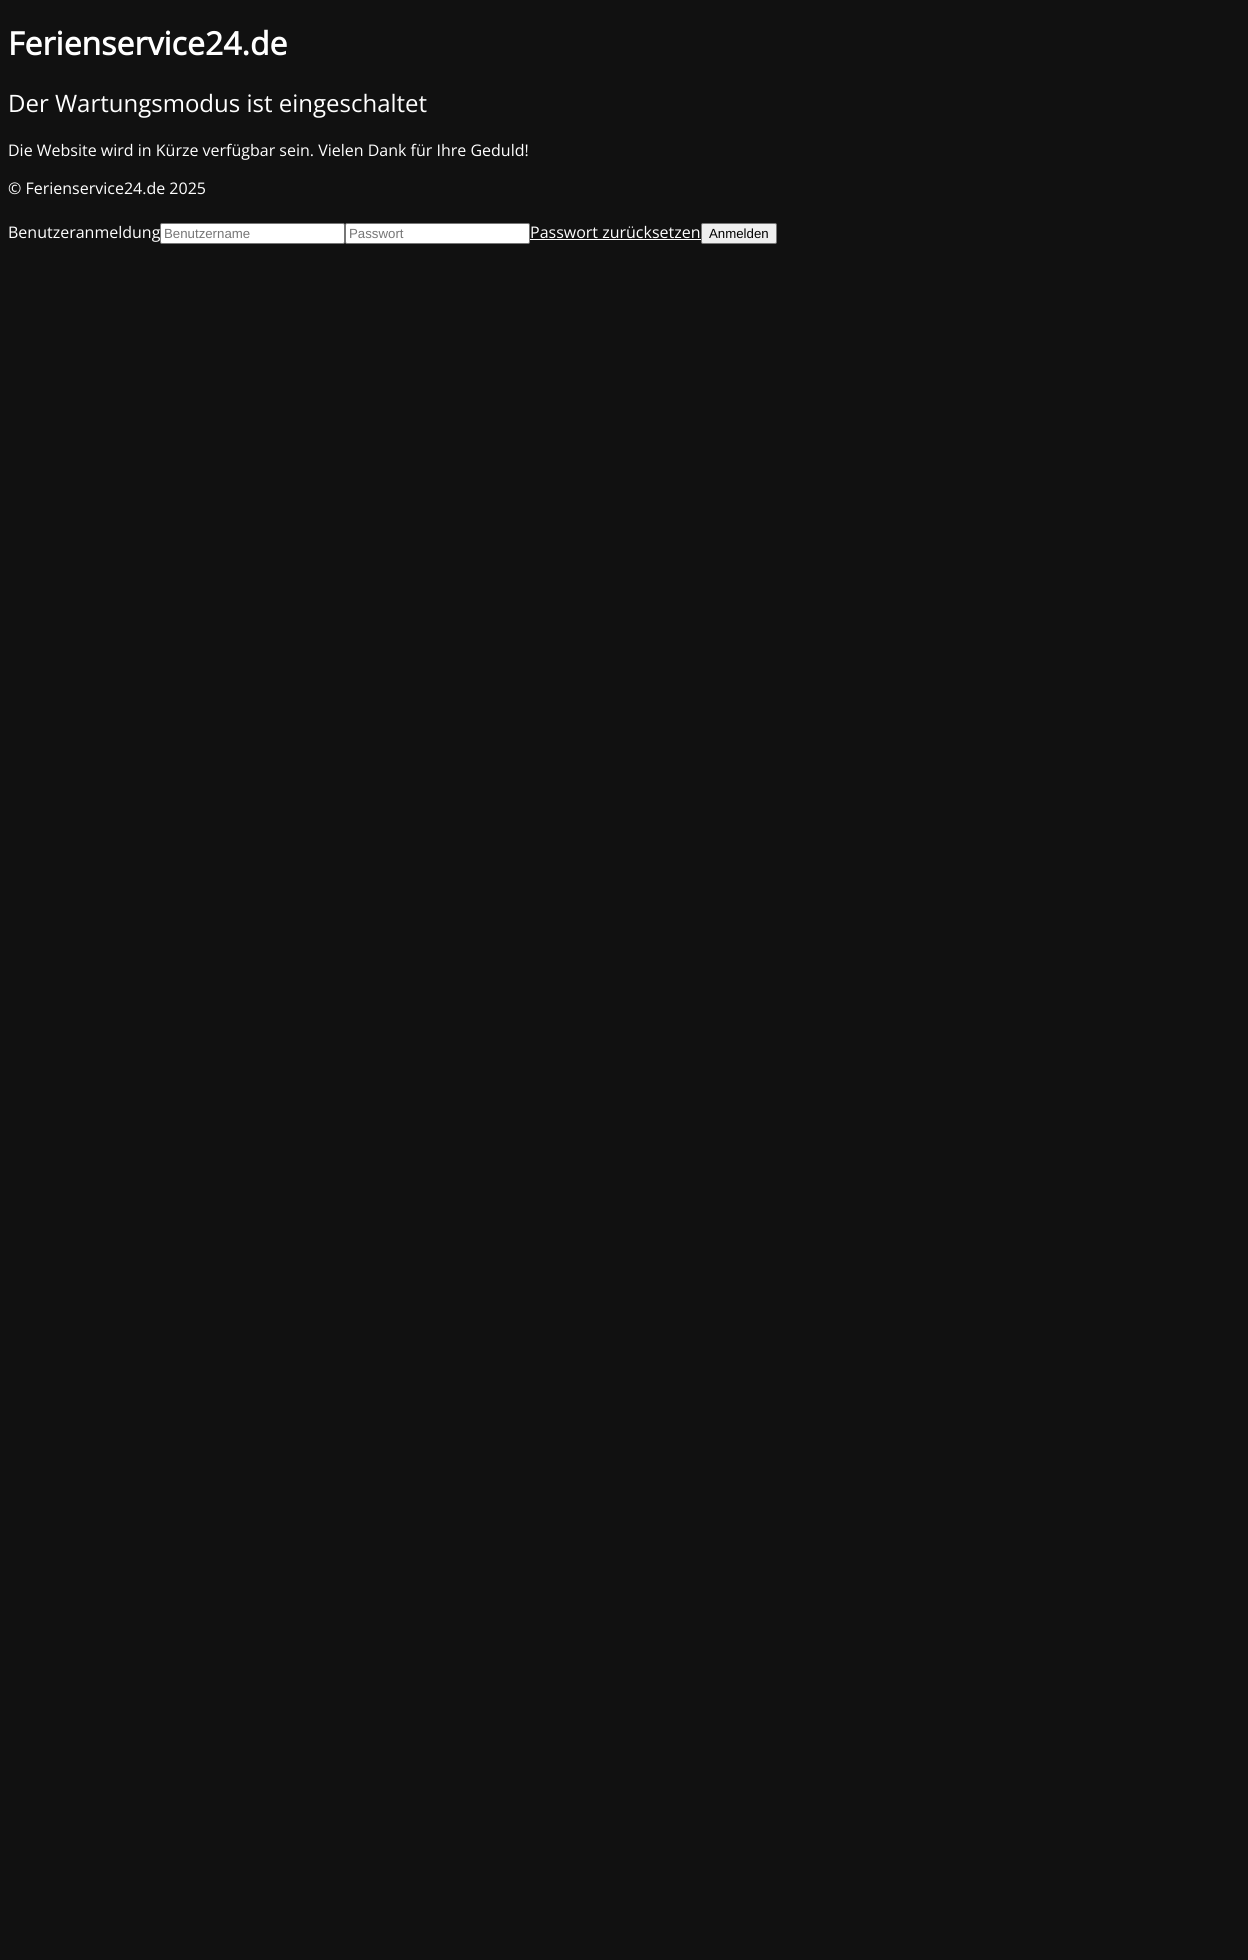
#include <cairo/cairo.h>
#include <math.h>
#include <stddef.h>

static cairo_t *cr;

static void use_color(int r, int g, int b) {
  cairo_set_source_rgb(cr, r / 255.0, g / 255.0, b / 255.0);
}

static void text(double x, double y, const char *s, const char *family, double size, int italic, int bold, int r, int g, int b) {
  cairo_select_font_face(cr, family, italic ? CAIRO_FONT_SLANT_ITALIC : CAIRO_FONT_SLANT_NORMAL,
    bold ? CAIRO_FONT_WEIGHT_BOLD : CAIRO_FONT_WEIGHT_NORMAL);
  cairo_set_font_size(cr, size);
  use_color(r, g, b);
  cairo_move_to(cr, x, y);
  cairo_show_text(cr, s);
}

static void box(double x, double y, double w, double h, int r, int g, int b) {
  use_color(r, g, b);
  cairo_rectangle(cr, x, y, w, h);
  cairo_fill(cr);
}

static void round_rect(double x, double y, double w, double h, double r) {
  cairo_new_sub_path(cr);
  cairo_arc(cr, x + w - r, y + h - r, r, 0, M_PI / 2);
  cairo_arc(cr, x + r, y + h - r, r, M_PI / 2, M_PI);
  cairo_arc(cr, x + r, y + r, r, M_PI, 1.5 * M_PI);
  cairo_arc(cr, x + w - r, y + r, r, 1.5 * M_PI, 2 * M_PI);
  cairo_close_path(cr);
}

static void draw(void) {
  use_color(17, 17, 17);
  cairo_paint(cr);
  use_color(255, 255, 255);
  round_rect(160.5, 223.5, 184, 20, 1.5);
  cairo_fill_preserve(cr);
  use_color(118, 118, 118);
  cairo_set_line_width(cr, 1);
  cairo_stroke(cr);
  use_color(255, 255, 255);
  round_rect(345.5, 223.5, 184, 20, 1.5);
  cairo_fill_preserve(cr);
  use_color(118, 118, 118);
  cairo_stroke(cr);
  box(530, 239, 171, 1, 255, 255, 255);
  use_color(239, 239, 239);
  round_rect(701.5, 223.5, 75, 20, 1.5);
  cairo_fill_preserve(cr);
  use_color(118, 118, 118);
  cairo_stroke(cr);
  text(8, 55, "Ferienservice24.de", "Open Sans", 32, 0, 1, 255, 255, 255);
  text(8, 112, "Der Wartungsmodus ist eingeschaltet", "Open Sans", 24, 0, 0, 255, 255, 255);
  text(8, 156, "Die Website wird in Kürze verfügbar sein. Vielen Dank für Ihre Geduld!", "Open Sans", 16, 0, 0, 255, 255, 255);
  text(8, 194, "© Ferienservice24.de 2025", "Open Sans", 16, 0, 0, 255, 255, 255);
  text(8, 238, "Benutzeranmeldung", "Open Sans", 16, 0, 0, 255, 255, 255);
  text(164, 238, "Benutzername", "Liberation Sans", 13.25, 0, 0, 117, 117, 117);
  text(349, 238, "Passwort", "Liberation Sans", 13.25, 0, 0, 117, 117, 117);
  text(530, 238, "Passwort zurücksetzen", "Open Sans", 16, 0, 0, 255, 255, 255);
  text(709, 238, "Anmelden", "Liberation Sans", 13.25, 0, 0, 0, 0, 0);
}

int main(void) {
  cairo_surface_t *surface = cairo_image_surface_create(CAIRO_FORMAT_RGB24, 1248, 1960);
  cr = cairo_create(surface);
  cairo_font_options_t *options = cairo_font_options_create();
  cairo_font_options_set_hint_metrics(options, CAIRO_HINT_METRICS_OFF);
  cairo_font_options_set_hint_style(options, CAIRO_HINT_STYLE_NONE);
  cairo_set_font_options(cr, options);
  cairo_set_miter_limit(cr, 4);
  draw();
  cairo_surface_write_to_png(surface, "out.png");
  cairo_font_options_destroy(options);
  cairo_destroy(cr);
  cairo_surface_destroy(surface);
  return 0;
}
